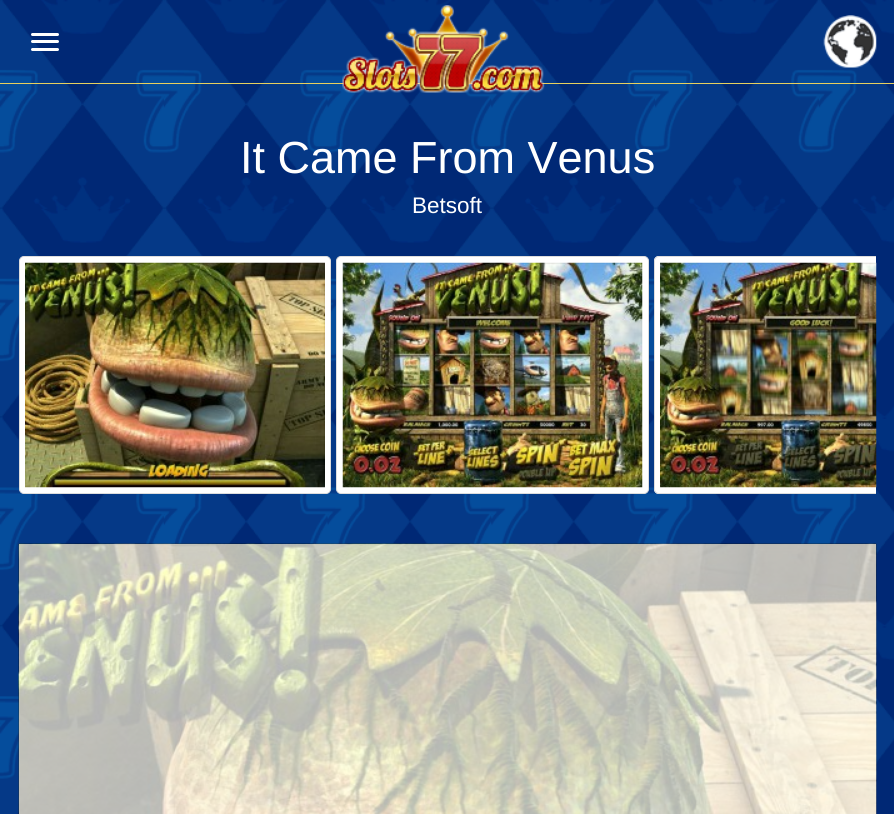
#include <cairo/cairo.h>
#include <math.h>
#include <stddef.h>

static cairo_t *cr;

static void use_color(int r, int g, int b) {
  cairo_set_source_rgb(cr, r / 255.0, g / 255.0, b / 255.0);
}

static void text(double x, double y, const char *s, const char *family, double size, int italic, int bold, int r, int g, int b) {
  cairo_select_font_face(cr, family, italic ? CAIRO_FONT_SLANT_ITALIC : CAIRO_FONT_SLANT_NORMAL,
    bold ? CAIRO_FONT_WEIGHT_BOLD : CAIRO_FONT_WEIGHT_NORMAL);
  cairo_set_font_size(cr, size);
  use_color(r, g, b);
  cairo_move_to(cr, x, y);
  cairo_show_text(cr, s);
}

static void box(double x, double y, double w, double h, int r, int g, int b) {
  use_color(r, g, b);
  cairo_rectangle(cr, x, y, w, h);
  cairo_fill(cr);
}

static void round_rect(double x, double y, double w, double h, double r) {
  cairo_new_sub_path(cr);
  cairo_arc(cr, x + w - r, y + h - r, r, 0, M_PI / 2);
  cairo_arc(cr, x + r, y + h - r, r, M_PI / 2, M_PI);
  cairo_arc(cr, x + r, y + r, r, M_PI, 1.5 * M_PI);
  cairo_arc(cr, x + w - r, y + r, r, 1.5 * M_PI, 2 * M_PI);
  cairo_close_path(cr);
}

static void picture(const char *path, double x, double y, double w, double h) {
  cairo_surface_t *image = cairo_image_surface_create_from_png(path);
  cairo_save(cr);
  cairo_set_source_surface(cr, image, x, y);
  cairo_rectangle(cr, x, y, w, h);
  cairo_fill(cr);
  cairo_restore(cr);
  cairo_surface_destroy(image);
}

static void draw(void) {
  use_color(255, 255, 255);
  cairo_paint(cr);
  picture("img_01.png", 0, 0, 894, 814);
  box(0, 83, 894, 1, 231, 208, 94);
  use_color(255, 255, 255);
  round_rect(31, 33, 28, 3, 1.5);
  cairo_fill(cr);
  round_rect(31, 40, 28, 3, 1.5);
  cairo_fill(cr);
  round_rect(31, 48, 28, 3, 1.5);
  cairo_fill(cr);
  picture("img_02.png", 342, 5, 203, 88);
  picture("img_03.png", 823, 15, 54, 53);
  round_rect(19.5, 256.5, 311, 237, 4.5);
  cairo_fill_preserve(cr);
  use_color(221, 221, 221);
  cairo_set_line_width(cr, 1);
  cairo_stroke(cr);
  picture("img_04.png", 25, 262, 300, 226);
  use_color(255, 255, 255);
  round_rect(336.5, 256.5, 312, 237, 4.5);
  cairo_fill_preserve(cr);
  use_color(221, 221, 221);
  cairo_stroke(cr);
  picture("img_05.png", 342, 262, 301, 226);
  use_color(255, 255, 255);
  cairo_new_path(cr);
  cairo_move_to(cr, 659, 256);
  cairo_line_to(cr, 876, 256);
  cairo_line_to(cr, 876, 494);
  cairo_line_to(cr, 659, 494);
  cairo_curve_to(cr, 656, 494, 654, 492, 654, 489);
  cairo_line_to(cr, 654, 261);
  cairo_curve_to(cr, 654, 258, 656, 256, 659, 256);
  cairo_close_path(cr);
  cairo_fill(cr);
  cairo_save(cr);
  cairo_rectangle(cr, 19, 231, 857, 275);
  cairo_clip(cr);
  round_rect(654.5, 256.5, 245, 237, 4.5);
  use_color(221, 221, 221);
  cairo_stroke(cr);
  cairo_restore(cr);
  picture("img_06.png", 660, 262, 217, 226);
  picture("img_07.png", 18, 543, 859, 271);
  text(240, 173, "It Came From Venus", "Liberation Sans", 45, 0, 0, 255, 255, 255);
  text(412, 213, "Betsoft", "Liberation Sans", 22.5, 0, 0, 255, 255, 255);
}

int main(void) {
  cairo_surface_t *surface = cairo_image_surface_create(CAIRO_FORMAT_RGB24, 894, 814);
  cr = cairo_create(surface);
  cairo_font_options_t *options = cairo_font_options_create();
  cairo_font_options_set_hint_metrics(options, CAIRO_HINT_METRICS_OFF);
  cairo_font_options_set_hint_style(options, CAIRO_HINT_STYLE_NONE);
  cairo_set_font_options(cr, options);
  cairo_set_miter_limit(cr, 4);
  draw();
  cairo_surface_write_to_png(surface, "out.png");
  cairo_font_options_destroy(options);
  cairo_destroy(cr);
  cairo_surface_destroy(surface);
  return 0;
}
